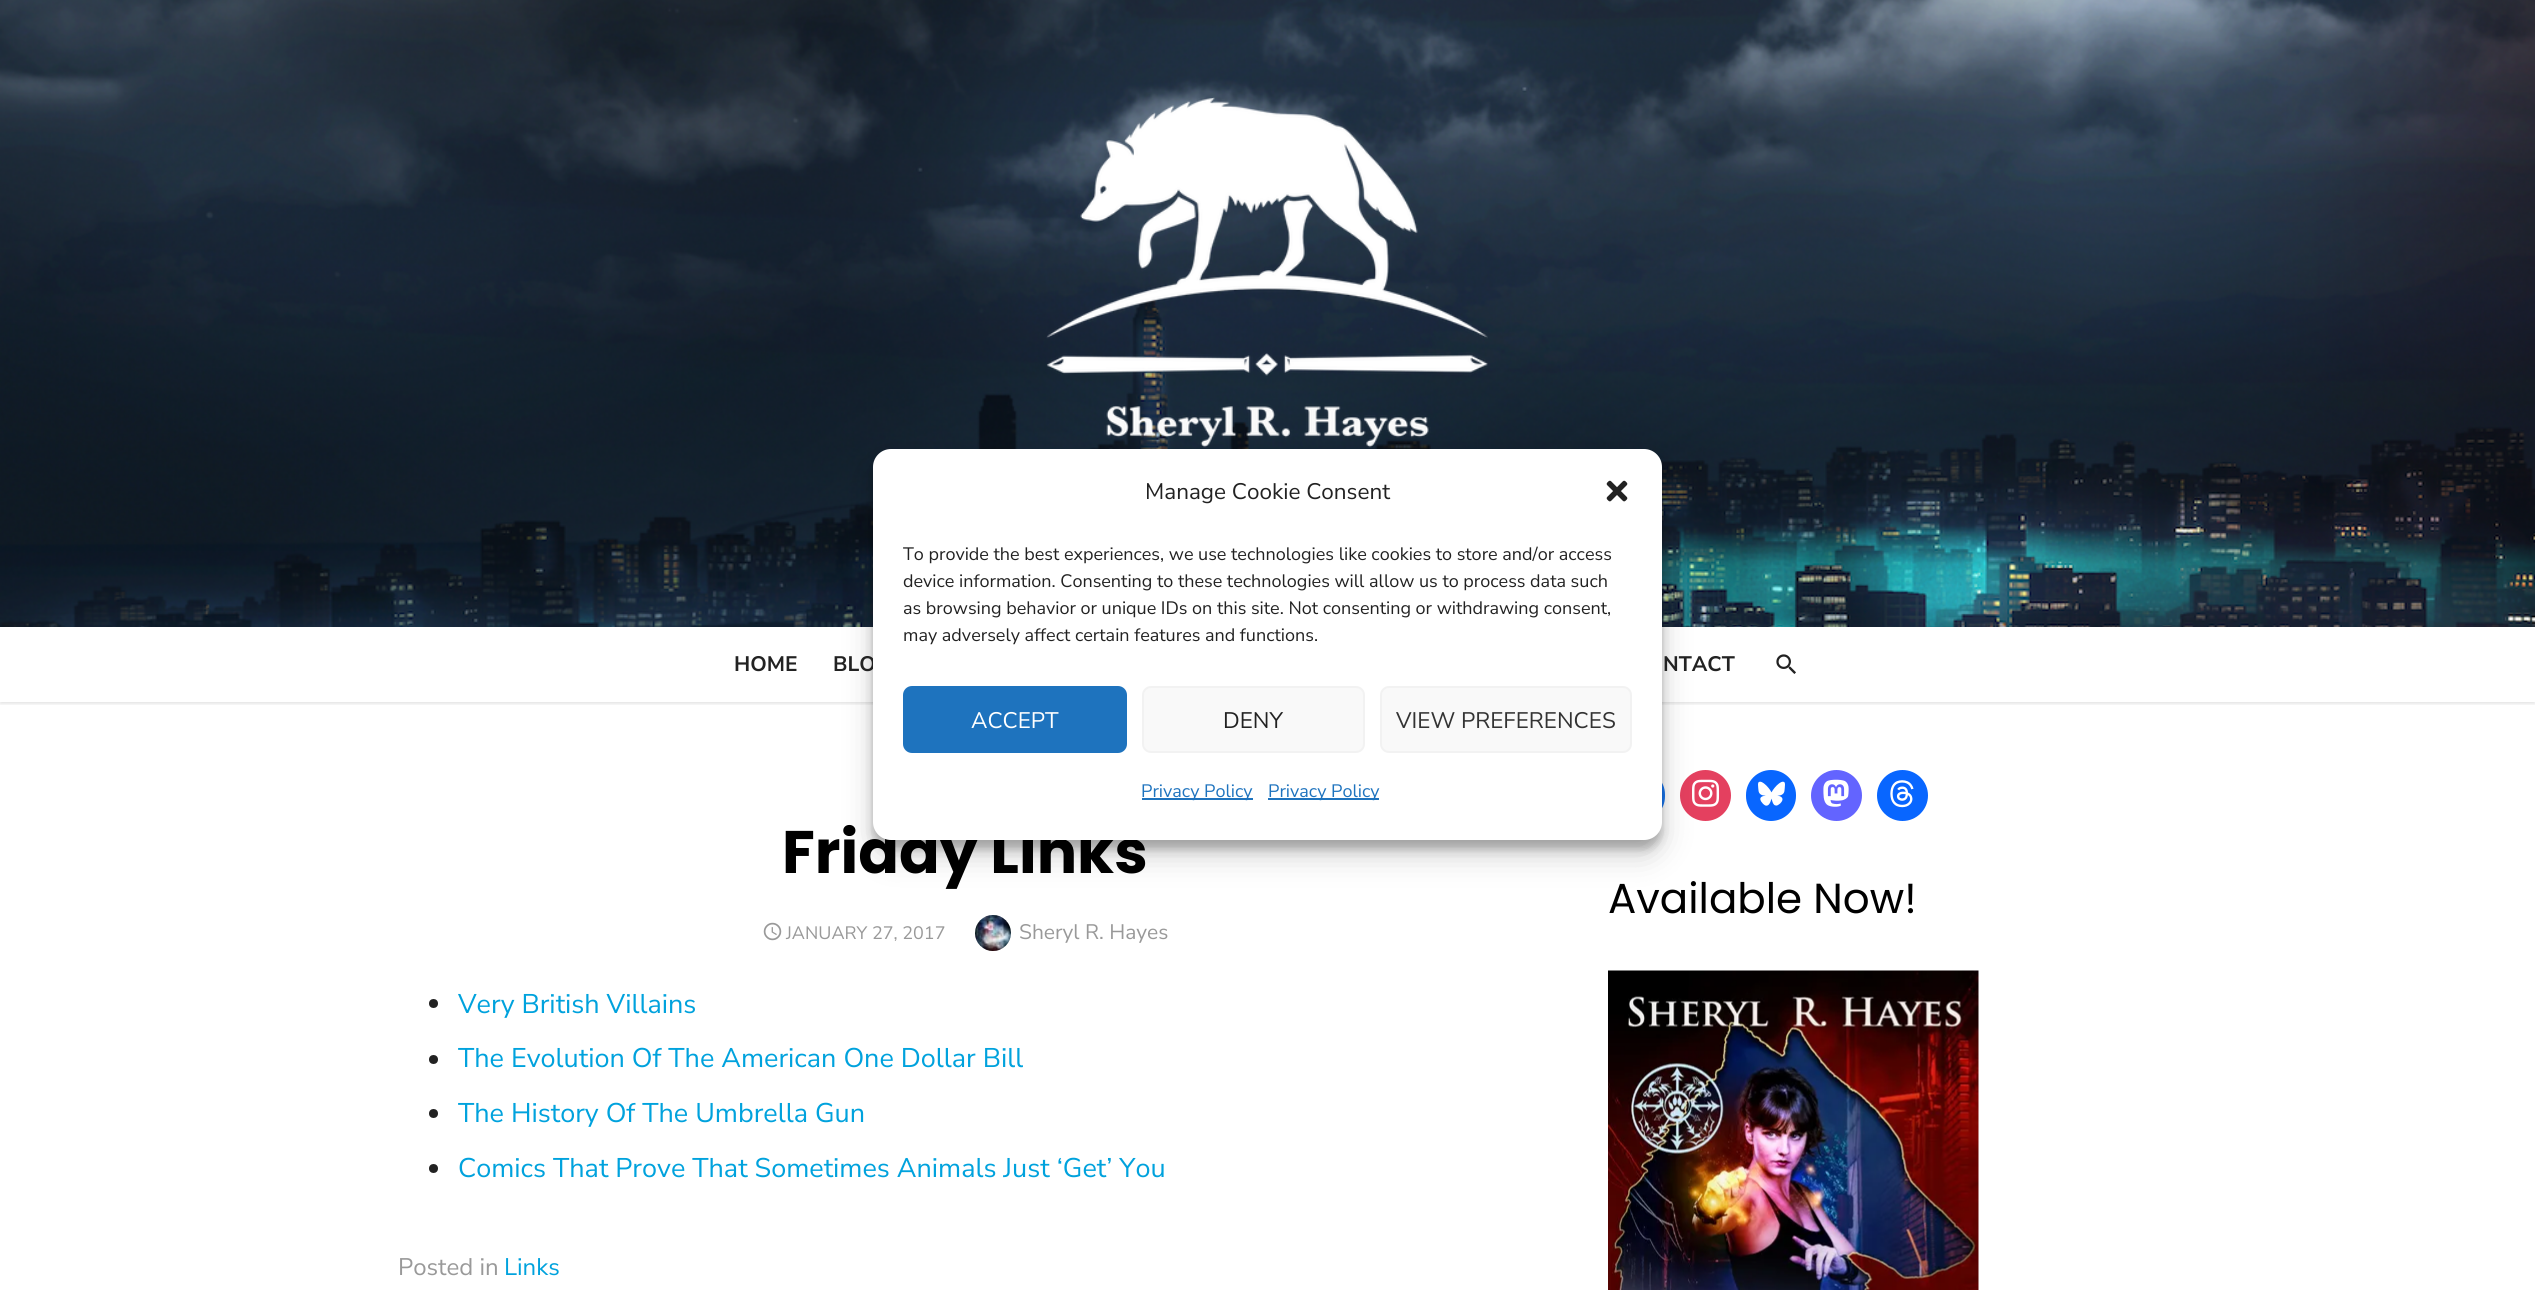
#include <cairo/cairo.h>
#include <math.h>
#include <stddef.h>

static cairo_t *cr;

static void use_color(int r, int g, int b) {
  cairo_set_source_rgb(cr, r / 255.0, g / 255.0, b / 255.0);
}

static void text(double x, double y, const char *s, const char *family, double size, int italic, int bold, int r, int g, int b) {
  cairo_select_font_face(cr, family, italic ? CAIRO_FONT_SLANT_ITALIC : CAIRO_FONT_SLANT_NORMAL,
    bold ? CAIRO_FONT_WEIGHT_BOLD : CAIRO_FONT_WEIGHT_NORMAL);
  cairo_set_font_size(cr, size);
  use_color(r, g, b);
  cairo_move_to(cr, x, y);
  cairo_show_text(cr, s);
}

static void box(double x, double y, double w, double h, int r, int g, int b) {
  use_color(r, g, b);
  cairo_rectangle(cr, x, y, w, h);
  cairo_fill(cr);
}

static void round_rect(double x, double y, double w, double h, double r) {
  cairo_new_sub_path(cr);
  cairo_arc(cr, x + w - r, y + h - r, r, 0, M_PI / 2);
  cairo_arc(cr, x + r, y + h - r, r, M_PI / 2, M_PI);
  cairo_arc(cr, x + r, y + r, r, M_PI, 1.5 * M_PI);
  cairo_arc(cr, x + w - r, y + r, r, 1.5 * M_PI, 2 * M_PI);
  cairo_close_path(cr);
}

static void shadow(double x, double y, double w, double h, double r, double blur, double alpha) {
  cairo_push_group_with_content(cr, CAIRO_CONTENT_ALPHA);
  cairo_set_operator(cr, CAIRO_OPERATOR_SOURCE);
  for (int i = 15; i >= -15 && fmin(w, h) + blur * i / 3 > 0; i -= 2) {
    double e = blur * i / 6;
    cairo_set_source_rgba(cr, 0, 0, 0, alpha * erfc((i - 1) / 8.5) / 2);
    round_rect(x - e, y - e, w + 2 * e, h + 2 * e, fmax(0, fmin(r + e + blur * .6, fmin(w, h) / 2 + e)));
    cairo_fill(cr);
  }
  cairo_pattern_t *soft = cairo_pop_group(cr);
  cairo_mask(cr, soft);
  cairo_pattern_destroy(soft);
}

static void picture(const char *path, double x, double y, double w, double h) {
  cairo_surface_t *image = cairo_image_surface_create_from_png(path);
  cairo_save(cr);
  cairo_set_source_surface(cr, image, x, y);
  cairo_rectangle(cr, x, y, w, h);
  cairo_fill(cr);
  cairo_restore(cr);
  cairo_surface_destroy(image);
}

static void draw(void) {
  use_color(255, 255, 255);
  cairo_paint(cr);
  cairo_save(cr);
  cairo_rectangle(cr, 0, 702, 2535, 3);
  cairo_clip(cr);
  use_color(0, 0, 0);
  shadow(0, 629, 2535, 75, 0, 1.5, 0.1);
  cairo_restore(cr);
  picture("img_02.png", 0, 0, 2535, 627);
  picture("img_03.png", 1046, 97, 442, 351);
  use_color(24, 119, 242);
  round_rect(1616, 770, 49, 51, 24.5);
  cairo_fill(cr);
  use_color(0, 0, 0);
  shadow(873, 458, 789, 391, 18, 4.5, 0.23);
  use_color(228, 64, 95);
  cairo_arc(cr, 1705.5, 795.5, 25.5, 0, 2 * M_PI);
  cairo_fill(cr);
  picture("img_07.png", 1692, 779, 28, 28);
  use_color(0, 0, 0);
  shadow(873, 464, 789, 391, 18, 15, 0.19);
  picture("img_04.png", 1776, 654, 20, 20);
  picture("img_05.png", 763, 922, 19, 19);
  picture("img_06.png", 975, 915, 36, 36);
  use_color(34, 34, 34);
  cairo_arc(cr, 433.5, 1003.5, 4.5, 0, 2 * M_PI);
  cairo_fill(cr);
  cairo_arc(cr, 433.5, 1059.5, 4.5, 0, 2 * M_PI);
  cairo_fill(cr);
  cairo_arc(cr, 433.5, 1113.5, 4.5, 0, 2 * M_PI);
  cairo_fill(cr);
  cairo_arc(cr, 433.5, 1168.5, 4.5, 0, 2 * M_PI);
  cairo_fill(cr);
  use_color(8, 102, 255);
  round_rect(1746, 770, 50, 51, 25);
  cairo_fill(cr);
  picture("img_08.png", 1758, 781, 27, 25);
  use_color(99, 100, 255);
  cairo_arc(cr, 1836.5, 795.5, 25.5, 0, 2 * M_PI);
  cairo_fill(cr);
  picture("img_09.png", 1823, 779, 26, 28);
  use_color(8, 102, 255);
  cairo_arc(cr, 1902.5, 795.5, 25.5, 0, 2 * M_PI);
  cairo_fill(cr);
  picture("img_10.png", 1890, 780, 24, 28);
  picture("img_11.png", 1608, 970, 371, 320);
  text(734, 671, "HOME", "Nunito Sans", 21, 0, 1, 34, 34, 34);
  text(833, 671, "BLO", "Nunito Sans", 21, 0, 1, 34, 34, 34);
  text(1663, 671, "NTACT", "Nunito Sans", 21, 0, 1, 34, 34, 34);
  text(782, 873, "Friday Links", "Poppins", 60, 0, 1, 0, 0, 0);
  use_color(255, 255, 255);
  round_rect(873, 449, 789, 391, 18);
  cairo_fill(cr);
  text(903, 641, "may adversely affect certain features and functions.", "Nunito Sans", 18, 0, 0, 34, 34, 34);
  text(903, 614, "as browsing behavior or unique IDs on this site. Not consenting or withdrawing consent,", "Nunito Sans", 18, 0, 0, 34, 34, 34);
  text(903, 587, "device information. Consenting to these technologies will allow us to process data such", "Nunito Sans", 18, 0, 0, 34, 34, 34);
  text(903, 560, "To provide the best experiences, we use technologies like cookies to store and/or access", "Nunito Sans", 18, 0, 0, 34, 34, 34);
  picture("img_01.png", 1606, 480, 22, 22);
  box(1268, 798, 111, 2, 30, 115, 190);
  text(1268, 797, "Privacy Policy", "Nunito Sans", 18, 0, 0, 30, 115, 190);
  box(1142, 798, 111, 2, 30, 115, 190);
  text(1141, 797, "Privacy Policy", "Nunito Sans", 18, 0, 0, 30, 115, 190);
  use_color(249, 249, 249);
  round_rect(1381, 687, 250, 65, 8);
  cairo_fill_preserve(cr);
  use_color(242, 242, 242);
  cairo_stroke(cr);
  text(1396, 728, "VIEW PREFERENCES", "Nunito Sans", 22.5, 0, 0, 51, 51, 51);
  use_color(249, 249, 249);
  round_rect(1143, 687, 221, 65, 8);
  cairo_fill_preserve(cr);
  use_color(242, 242, 242);
  cairo_stroke(cr);
  text(1223, 728, "DENY", "Nunito Sans", 22.5, 0, 0, 34, 34, 34);
  use_color(30, 115, 190);
  round_rect(904, 687, 222, 65, 8);
  cairo_fill_preserve(cr);
  cairo_stroke(cr);
  text(971, 728, "ACCEPT", "Nunito Sans", 22.5, 0, 0, 255, 255, 255);
  text(1145, 499, "Manage Cookie Consent", "Nunito Sans", 22.5, 0, 0, 34, 34, 34);
  text(786, 939, "JANUARY 27, 2017", "Nunito Sans", 18, 0, 0, 153, 153, 153);
  text(1019, 939, "Sheryl R. Hayes", "Nunito Sans", 21, 0, 0, 153, 153, 153);
  text(458, 1013, "Very British Villains", "Nunito Sans", 27, 0, 0, 0, 162, 221);
  text(458, 1067, "The Evolution Of The American One Dollar Bill", "Nunito Sans", 27, 0, 0, 0, 162, 221);
  text(458, 1122, "The History Of The Umbrella Gun", "Nunito Sans", 27, 0, 0, 0, 162, 221);
  text(458, 1177, "Comics That Prove That Sometimes Animals Just ‘Get’ You", "Nunito Sans", 27, 0, 0, 0, 162, 221);
  text(398, 1275, "Posted in", "Nunito Sans", 24, 0, 0, 153, 153, 153);
  text(504, 1275, "Links", "Nunito Sans", 24, 0, 0, 0, 162, 221);
  text(1608, 913, "Available Now!", "Poppins", 42, 0, 0, 0, 0, 0);
}

int main(void) {
  cairo_surface_t *surface = cairo_image_surface_create(CAIRO_FORMAT_RGB24, 2535, 1290);
  cr = cairo_create(surface);
  cairo_font_options_t *options = cairo_font_options_create();
  cairo_font_options_set_hint_metrics(options, CAIRO_HINT_METRICS_OFF);
  cairo_font_options_set_hint_style(options, CAIRO_HINT_STYLE_NONE);
  cairo_set_font_options(cr, options);
  cairo_set_miter_limit(cr, 4);
  draw();
  cairo_surface_write_to_png(surface, "out.png");
  cairo_font_options_destroy(options);
  cairo_destroy(cr);
  cairo_surface_destroy(surface);
  return 0;
}
